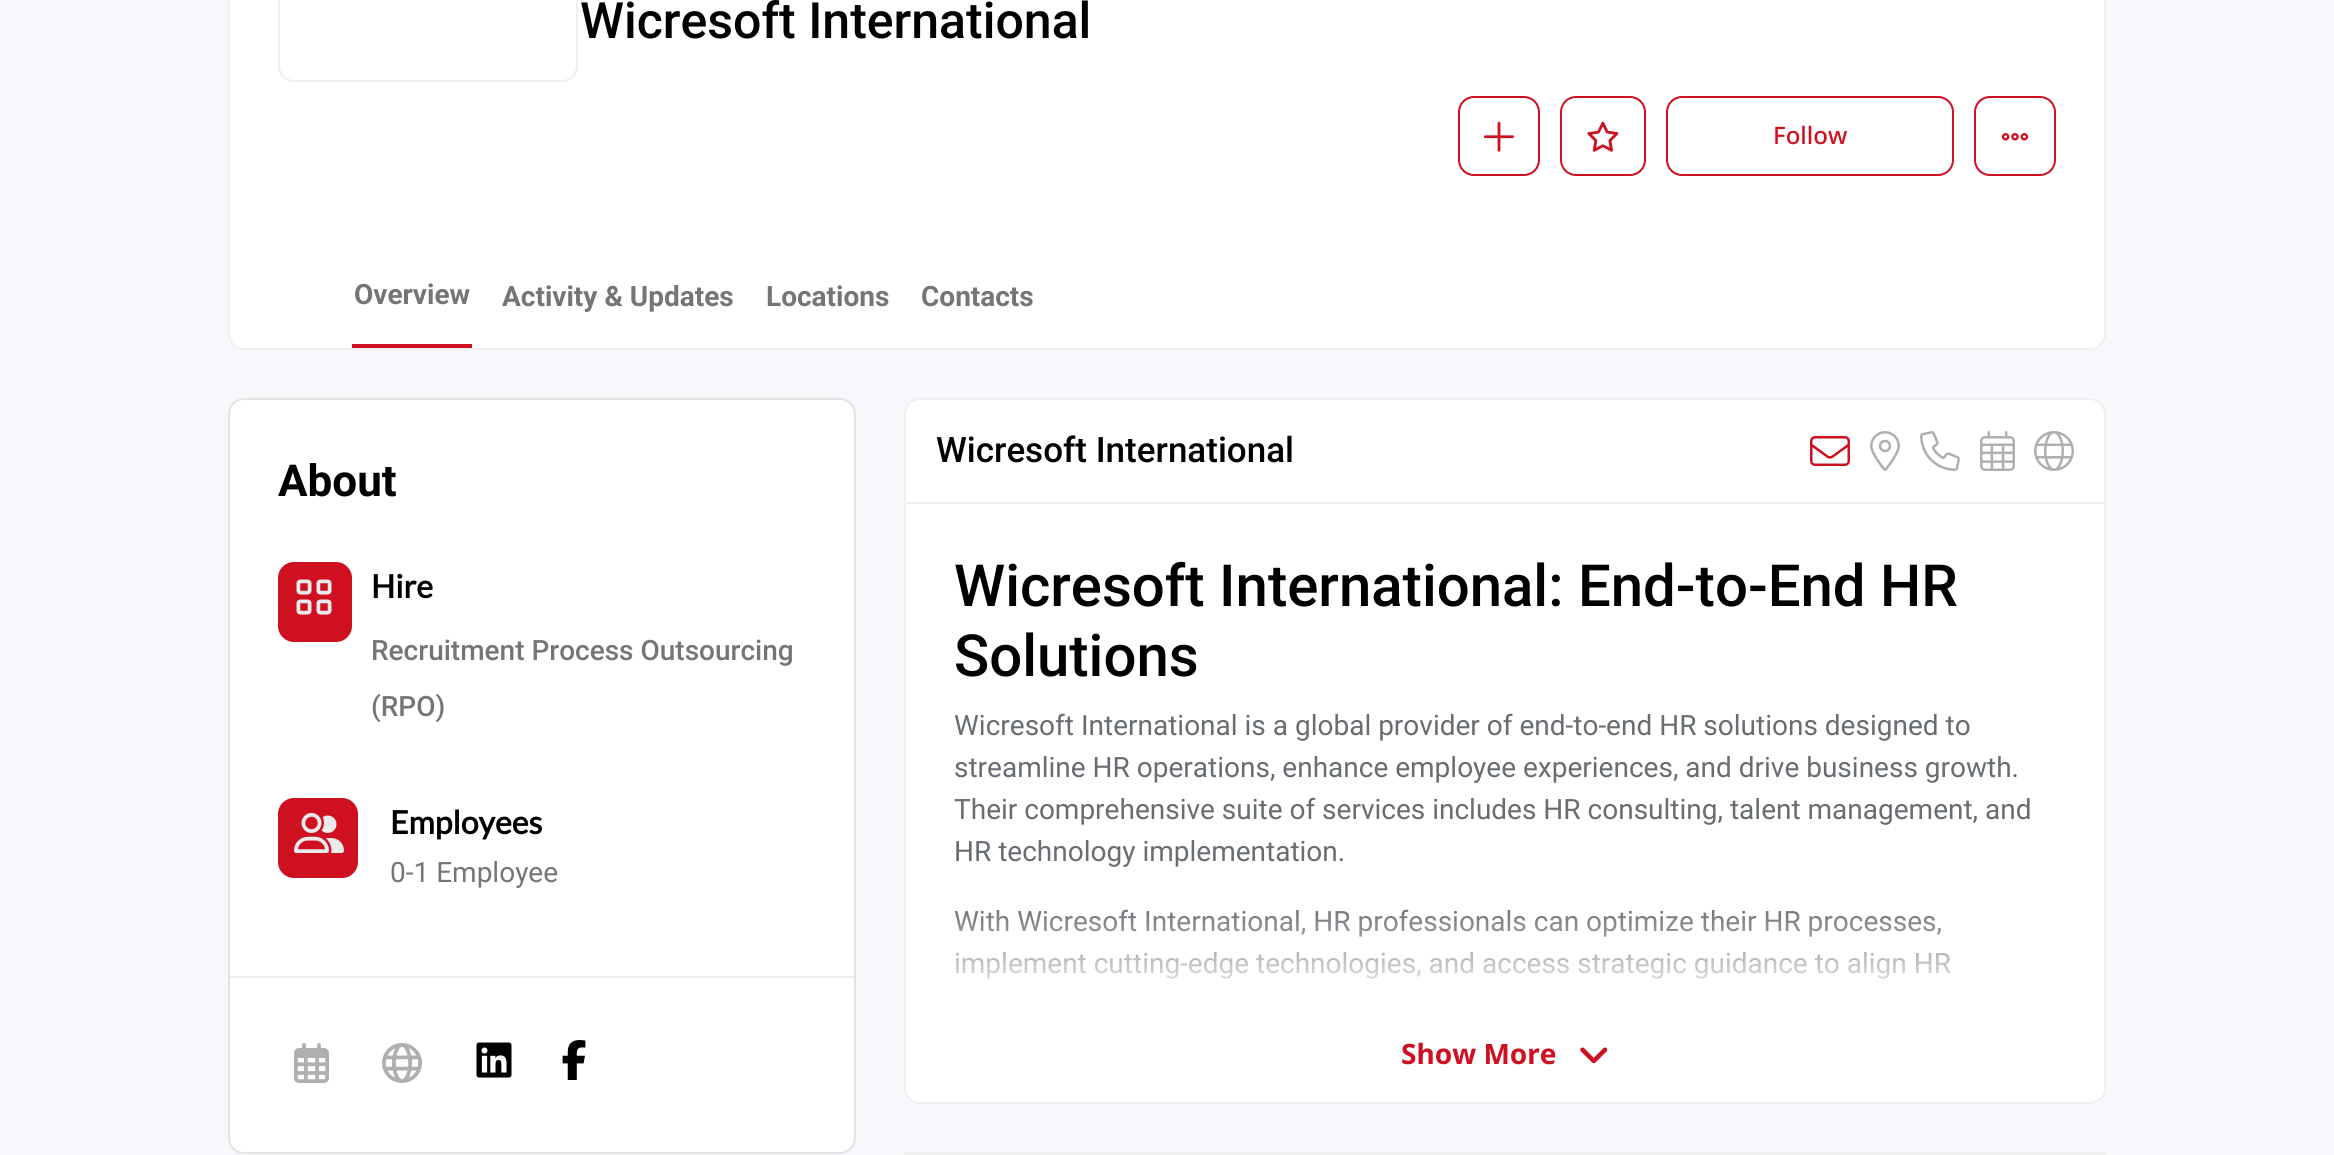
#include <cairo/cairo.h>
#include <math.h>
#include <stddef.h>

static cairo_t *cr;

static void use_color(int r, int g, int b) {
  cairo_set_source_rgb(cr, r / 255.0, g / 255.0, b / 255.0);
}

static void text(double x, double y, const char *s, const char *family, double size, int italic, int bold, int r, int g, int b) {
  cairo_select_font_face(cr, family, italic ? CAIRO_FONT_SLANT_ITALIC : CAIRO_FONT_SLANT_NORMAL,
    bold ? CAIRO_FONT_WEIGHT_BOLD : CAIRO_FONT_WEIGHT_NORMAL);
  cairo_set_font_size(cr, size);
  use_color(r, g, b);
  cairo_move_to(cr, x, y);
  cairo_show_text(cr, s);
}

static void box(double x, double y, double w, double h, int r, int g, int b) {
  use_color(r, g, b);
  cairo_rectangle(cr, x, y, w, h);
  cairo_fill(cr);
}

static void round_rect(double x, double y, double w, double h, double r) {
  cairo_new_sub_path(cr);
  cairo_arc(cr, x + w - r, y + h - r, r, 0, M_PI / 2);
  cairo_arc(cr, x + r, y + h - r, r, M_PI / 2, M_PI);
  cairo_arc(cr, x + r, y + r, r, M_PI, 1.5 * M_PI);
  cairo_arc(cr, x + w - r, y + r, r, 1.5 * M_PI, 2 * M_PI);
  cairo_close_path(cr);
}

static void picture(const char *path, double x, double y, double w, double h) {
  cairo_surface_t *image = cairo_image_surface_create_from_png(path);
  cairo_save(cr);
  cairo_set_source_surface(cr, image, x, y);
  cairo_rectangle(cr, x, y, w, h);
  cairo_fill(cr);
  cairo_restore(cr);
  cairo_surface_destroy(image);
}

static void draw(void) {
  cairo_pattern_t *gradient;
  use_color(248, 248, 252);
  cairo_paint(cr);
  use_color(255, 255, 255);
  round_rect(229, -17, 1876, 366, 15);
  cairo_fill_preserve(cr);
  use_color(239, 239, 239);
  cairo_stroke(cr);
  round_rect(279, -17, 298, 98, 15);
  cairo_stroke(cr);
  round_rect(1459, 97, 80, 78, 15);
  use_color(206, 16, 33);
  cairo_stroke(cr);
  picture("img_01.png", 1484, 121, 30, 31);
  round_rect(1561, 97, 84, 78, 15);
  cairo_stroke(cr);
  picture("img_02.png", 1587, 121, 32, 31);
  round_rect(1667, 97, 286, 78, 15);
  cairo_stroke(cr);
  round_rect(1975, 97, 80, 78, 15);
  cairo_stroke(cr);
  picture("img_03.png", 2001, 133, 28, 8);
  box(352, 344, 120, 4, 206, 16, 33);
  use_color(255, 255, 255);
  round_rect(229, 399, 626, 754, 15);
  cairo_fill_preserve(cr);
  use_color(228, 227, 225);
  cairo_stroke(cr);
  use_color(206, 16, 33);
  round_rect(278, 562, 74, 80, 16);
  cairo_fill(cr);
  picture("img_04.png", 296, 579, 36, 36);
  round_rect(278, 798, 80, 80, 16);
  cairo_fill(cr);
  picture("img_05.png", 294, 813, 50, 40);
  box(230, 976, 624, 2, 237, 236, 234);
  picture("img_06.png", 294, 1043, 35, 40);
  picture("img_07.png", 382, 1043, 40, 40);
  picture("img_08.png", 476, 1042, 36, 36);
  picture("img_09.png", 562, 1040, 24, 40);
  use_color(255, 255, 255);
  round_rect(905, 399, 1200, 704, 15);
  cairo_fill_preserve(cr);
  use_color(239, 239, 239);
  cairo_stroke(cr);
  box(906, 502, 1198, 2, 239, 239, 239);
  picture("img_10.png", 1810, 436, 40, 30);
  picture("img_11.png", 1870, 431, 30, 40);
  picture("img_12.png", 1920, 431, 40, 40);
  picture("img_13.png", 1980, 431, 35, 40);
  picture("img_14.png", 2034, 431, 40, 40);
  picture("img_15.png", 1580, 1047, 28, 17);
  round_rect(904, 1152, 1202, 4, 2);
  cairo_fill(cr);
  text(580, 38, "Wicresoft International", "Roboto Medium", 50, 0, 0, 0, 0, 0);
  text(1773, 144, "Follow", "Noto Sans Medium", 24, 0, 0, 206, 16, 33);
  text(354, 304, "Overview", "Roboto", 28, 0, 1, 117, 117, 117);
  text(502, 306, "Activity & Updates", "Roboto", 28, 0, 1, 117, 117, 117);
  text(766, 306, "Locations", "Roboto", 28, 0, 1, 117, 117, 117);
  text(921, 306, "Contacts", "Roboto", 28, 0, 1, 117, 117, 117);
  text(278, 496, "About", "Roboto", 44, 0, 1, 0, 0, 0);
  text(371, 598, "Hire", "Lato", 32, 0, 1, 0, 0, 0);
  text(371, 660, "Recruitment Process Outsourcing", "Roboto Medium", 28, 0, 0, 117, 117, 117);
  text(371, 716, "(RPO)", "Roboto Medium", 28, 0, 0, 117, 117, 117);
  text(390, 834, "Employees", "Lato", 32, 0, 1, 0, 0, 0);
  text(390, 882, "0-1 Employee", "Roboto", 28, 0, 0, 117, 117, 117);
  text(936, 462, "Wicresoft International", "Roboto Medium", 35, 0, 0, 0, 0, 0);
  text(954, 606, "Wicresoft International: End-to-End HR", "Roboto Medium", 58.1, 0, 0, 0, 0, 0);
  text(954, 676, "Solutions", "Roboto Medium", 58.1, 0, 0, 0, 0, 0);
  text(954, 735, "Wicresoft International is a global provider of end-to-end HR solutions designed to", "Roboto", 28, 0, 0, 104, 109, 114);
  text(954, 777, "streamline HR operations, enhance employee experiences, and drive business growth.", "Roboto", 28, 0, 0, 104, 109, 114);
  text(954, 819, "Their comprehensive suite of services includes HR consulting, talent management, and", "Roboto", 28, 0, 0, 104, 109, 114);
  text(954, 861, "HR technology implementation.", "Roboto", 28, 0, 0, 104, 109, 114);
  text(954, 931, "With Wicresoft International, HR professionals can optimize their HR processes,", "Roboto", 28, 0, 0, 104, 109, 114);
  text(954, 973, "implement cutting-edge technologies, and access strategic guidance to align HR", "Roboto", 28, 0, 0, 104, 109, 114);
  gradient = cairo_pattern_create_linear(1505, 904, 1505, 1004);
  cairo_pattern_add_color_stop_rgba(gradient, 0, 1, 1, 1, 0);
  cairo_pattern_add_color_stop_rgba(gradient, 1, 1, 1, 1, 1);
  cairo_set_source(cr, gradient);
  cairo_pattern_destroy(gradient);
  cairo_rectangle(cr, 955, 910, 996, 69);
  cairo_fill(cr);
  text(1401, 1064, "Show More", "Noto Sans", 28, 0, 1, 206, 16, 33);
}

int main(void) {
  cairo_surface_t *surface = cairo_image_surface_create(CAIRO_FORMAT_RGB24, 2334, 1155);
  cr = cairo_create(surface);
  cairo_font_options_t *options = cairo_font_options_create();
  cairo_font_options_set_hint_metrics(options, CAIRO_HINT_METRICS_OFF);
  cairo_font_options_set_hint_style(options, CAIRO_HINT_STYLE_NONE);
  cairo_set_font_options(cr, options);
  cairo_set_miter_limit(cr, 4);
  draw();
  cairo_surface_write_to_png(surface, "out.png");
  cairo_font_options_destroy(options);
  cairo_destroy(cr);
  cairo_surface_destroy(surface);
  return 0;
}
